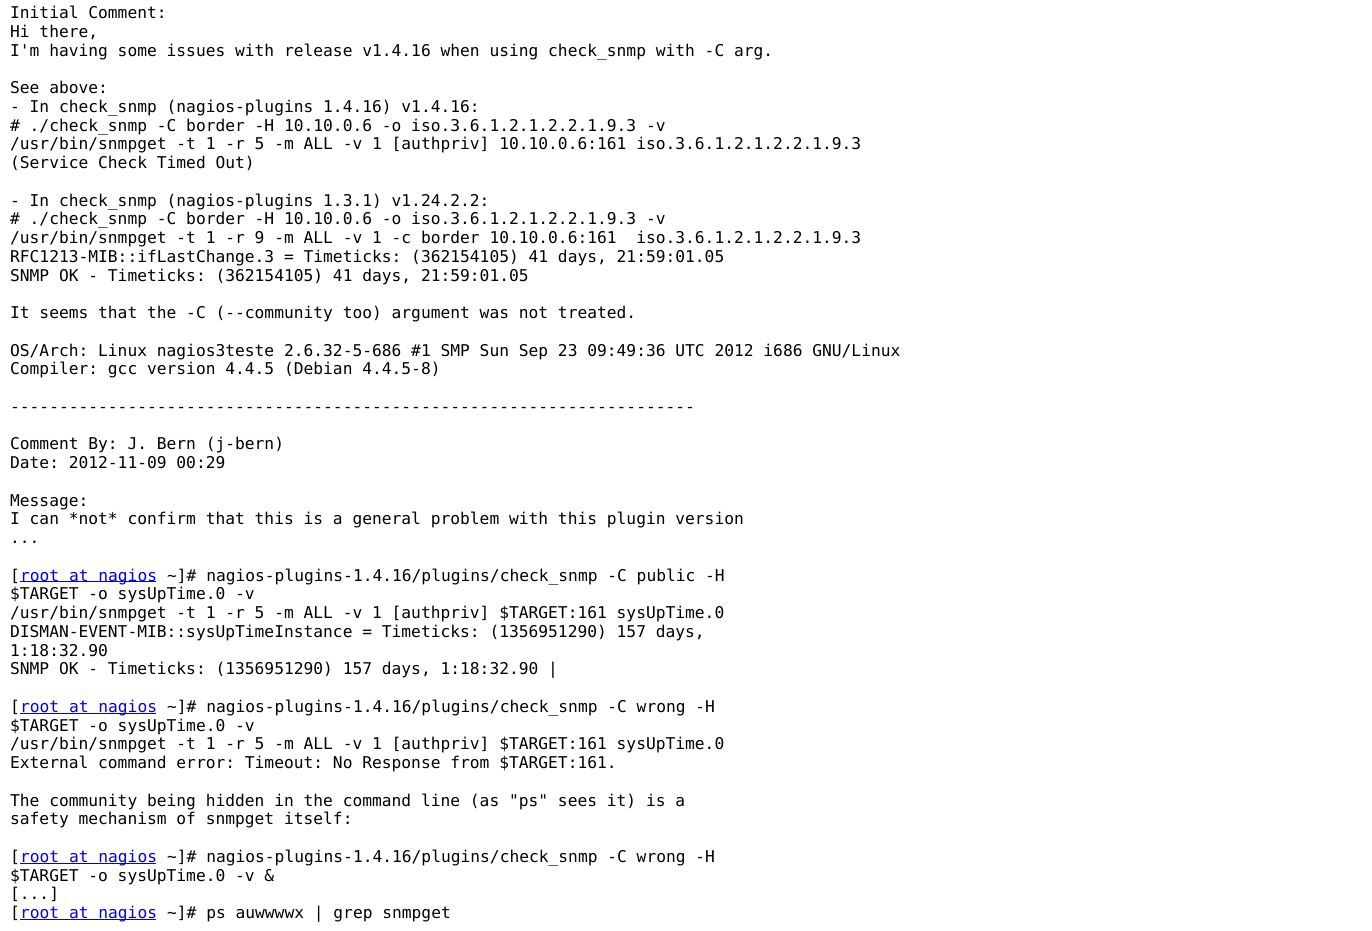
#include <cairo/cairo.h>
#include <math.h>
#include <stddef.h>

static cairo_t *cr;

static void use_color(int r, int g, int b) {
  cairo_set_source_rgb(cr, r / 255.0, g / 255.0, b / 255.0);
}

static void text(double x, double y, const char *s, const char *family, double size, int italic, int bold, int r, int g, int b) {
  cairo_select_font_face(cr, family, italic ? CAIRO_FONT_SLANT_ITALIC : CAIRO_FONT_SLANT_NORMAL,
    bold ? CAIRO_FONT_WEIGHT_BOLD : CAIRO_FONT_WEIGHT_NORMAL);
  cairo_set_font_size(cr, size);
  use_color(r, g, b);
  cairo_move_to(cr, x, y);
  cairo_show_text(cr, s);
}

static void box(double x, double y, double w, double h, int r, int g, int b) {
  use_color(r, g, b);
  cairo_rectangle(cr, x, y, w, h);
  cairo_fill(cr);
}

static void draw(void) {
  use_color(255, 255, 255);
  cairo_paint(cr);
  box(20, 581, 136, 1, 0, 0, 238);
  box(20, 713, 136, 1, 0, 0, 238);
  box(20, 863, 136, 1, 0, 0, 238);
  box(20, 919, 136, 1, 0, 0, 238);
  text(10, 18, "Initial Comment:", "DejaVu Sans Mono", 16.25, 0, 0, 0, 0, 0);
  text(10, 37, "Hi there,", "DejaVu Sans Mono", 16.25, 0, 0, 0, 0, 0);
  text(10, 56, "I'm having some issues with release v1.4.16 when using check_snmp with -C arg.", "DejaVu Sans Mono", 16.25, 0, 0, 0, 0, 0);
  text(10, 93, "See above:", "DejaVu Sans Mono", 16.25, 0, 0, 0, 0, 0);
  text(10, 112, "- In check_snmp (nagios-plugins 1.4.16) v1.4.16:", "DejaVu Sans Mono", 16.25, 0, 0, 0, 0, 0);
  text(10, 131, "# ./check_snmp -C border -H 10.10.0.6 -o iso.3.6.1.2.1.2.2.1.9.3 -v", "DejaVu Sans Mono", 16.25, 0, 0, 0, 0, 0);
  text(10, 149, "/usr/bin/snmpget -t 1 -r 5 -m ALL -v 1 [authpriv] 10.10.0.6:161 iso.3.6.1.2.1.2.2.1.9.3", "DejaVu Sans Mono", 16.25, 0, 0, 0, 0, 0);
  text(10, 168, "(Service Check Timed Out)", "DejaVu Sans Mono", 16.25, 0, 0, 0, 0, 0);
  text(10, 206, "- In check_snmp (nagios-plugins 1.3.1) v1.24.2.2:", "DejaVu Sans Mono", 16.25, 0, 0, 0, 0, 0);
  text(10, 224, "# ./check_snmp -C border -H 10.10.0.6 -o iso.3.6.1.2.1.2.2.1.9.3 -v", "DejaVu Sans Mono", 16.25, 0, 0, 0, 0, 0);
  text(10, 243, "/usr/bin/snmpget -t 1 -r 9 -m ALL -v 1 -c border 10.10.0.6:161  iso.3.6.1.2.1.2.2.1.9.3", "DejaVu Sans Mono", 16.25, 0, 0, 0, 0, 0);
  text(10, 262, "RFC1213-MIB::ifLastChange.3 = Timeticks: (362154105) 41 days, 21:59:01.05", "DejaVu Sans Mono", 16.25, 0, 0, 0, 0, 0);
  text(10, 281, "SNMP OK - Timeticks: (362154105) 41 days, 21:59:01.05", "DejaVu Sans Mono", 16.25, 0, 0, 0, 0, 0);
  text(10, 318, "It seems that the -C (--community too) argument was not treated.", "DejaVu Sans Mono", 16.25, 0, 0, 0, 0, 0);
  text(10, 356, "OS/Arch: Linux nagios3teste 2.6.32-5-686 #1 SMP Sun Sep 23 09:49:36 UTC 2012 i686 GNU/Linux", "DejaVu Sans Mono", 16.25, 0, 0, 0, 0, 0);
  text(10, 374, "Compiler: gcc version 4.4.5 (Debian 4.4.5-8)", "DejaVu Sans Mono", 16.25, 0, 0, 0, 0, 0);
  text(10, 412, "----------------------------------------------------------------------", "DejaVu Sans Mono", 16.25, 0, 0, 0, 0, 0);
  text(10, 449, "Comment By: J. Bern (j-bern)", "DejaVu Sans Mono", 16.25, 0, 0, 0, 0, 0);
  text(10, 468, "Date: 2012-11-09 00:29", "DejaVu Sans Mono", 16.25, 0, 0, 0, 0, 0);
  text(10, 506, "Message:", "DejaVu Sans Mono", 16.25, 0, 0, 0, 0, 0);
  text(10, 524, "I can *not* confirm that this is a general problem with this plugin version", "DejaVu Sans Mono", 16.25, 0, 0, 0, 0, 0);
  text(10, 543, "...", "DejaVu Sans Mono", 16.25, 0, 0, 0, 0, 0);
  text(10, 581, "[", "DejaVu Sans Mono", 16.25, 0, 0, 0, 0, 0);
  text(20, 581, "root at nagios", "DejaVu Sans Mono", 16.25, 0, 0, 0, 0, 238);
  text(167, 581, "~]# nagios-plugins-1.4.16/plugins/check_snmp -C public -H", "DejaVu Sans Mono", 16.25, 0, 0, 0, 0, 0);
  text(10, 599, "$TARGET -o sysUpTime.0 -v", "DejaVu Sans Mono", 16.25, 0, 0, 0, 0, 0);
  text(10, 618, "/usr/bin/snmpget -t 1 -r 5 -m ALL -v 1 [authpriv] $TARGET:161 sysUpTime.0", "DejaVu Sans Mono", 16.25, 0, 0, 0, 0, 0);
  text(10, 637, "DISMAN-EVENT-MIB::sysUpTimeInstance = Timeticks: (1356951290) 157 days,", "DejaVu Sans Mono", 16.25, 0, 0, 0, 0, 0);
  text(10, 656, "1:18:32.90", "DejaVu Sans Mono", 16.25, 0, 0, 0, 0, 0);
  text(10, 674, "SNMP OK - Timeticks: (1356951290) 157 days, 1:18:32.90 |", "DejaVu Sans Mono", 16.25, 0, 0, 0, 0, 0);
  text(10, 712, "[", "DejaVu Sans Mono", 16.25, 0, 0, 0, 0, 0);
  text(20, 712, "root at nagios", "DejaVu Sans Mono", 16.25, 0, 0, 0, 0, 238);
  text(167, 712, "~]# nagios-plugins-1.4.16/plugins/check_snmp -C wrong -H", "DejaVu Sans Mono", 16.25, 0, 0, 0, 0, 0);
  text(10, 731, "$TARGET -o sysUpTime.0 -v", "DejaVu Sans Mono", 16.25, 0, 0, 0, 0, 0);
  text(10, 749, "/usr/bin/snmpget -t 1 -r 5 -m ALL -v 1 [authpriv] $TARGET:161 sysUpTime.0", "DejaVu Sans Mono", 16.25, 0, 0, 0, 0, 0);
  text(10, 768, "External command error: Timeout: No Response from $TARGET:161.", "DejaVu Sans Mono", 16.25, 0, 0, 0, 0, 0);
  text(10, 806, "The community being hidden in the command line (as \"ps\" sees it) is a", "DejaVu Sans Mono", 16.25, 0, 0, 0, 0, 0);
  text(10, 824, "safety mechanism of snmpget itself:", "DejaVu Sans Mono", 16.25, 0, 0, 0, 0, 0);
  text(10, 862, "[", "DejaVu Sans Mono", 16.25, 0, 0, 0, 0, 0);
  text(20, 862, "root at nagios", "DejaVu Sans Mono", 16.25, 0, 0, 0, 0, 238);
  text(167, 862, "~]# nagios-plugins-1.4.16/plugins/check_snmp -C wrong -H", "DejaVu Sans Mono", 16.25, 0, 0, 0, 0, 0);
  text(10, 881, "$TARGET -o sysUpTime.0 -v &", "DejaVu Sans Mono", 16.25, 0, 0, 0, 0, 0);
  text(10, 899, "[...]", "DejaVu Sans Mono", 16.25, 0, 0, 0, 0, 0);
  text(10, 918, "[", "DejaVu Sans Mono", 16.25, 0, 0, 0, 0, 0);
  text(20, 918, "root at nagios", "DejaVu Sans Mono", 16.25, 0, 0, 0, 0, 238);
  text(167, 918, "~]# ps auwwwwx | grep snmpget", "DejaVu Sans Mono", 16.25, 0, 0, 0, 0, 0);
}

int main(void) {
  cairo_surface_t *surface = cairo_image_surface_create(CAIRO_FORMAT_RGB24, 1372, 931);
  cr = cairo_create(surface);
  cairo_font_options_t *options = cairo_font_options_create();
  cairo_font_options_set_hint_metrics(options, CAIRO_HINT_METRICS_OFF);
  cairo_font_options_set_hint_style(options, CAIRO_HINT_STYLE_NONE);
  cairo_set_font_options(cr, options);
  cairo_set_miter_limit(cr, 4);
  draw();
  cairo_surface_write_to_png(surface, "out.png");
  cairo_font_options_destroy(options);
  cairo_destroy(cr);
  cairo_surface_destroy(surface);
  return 0;
}
